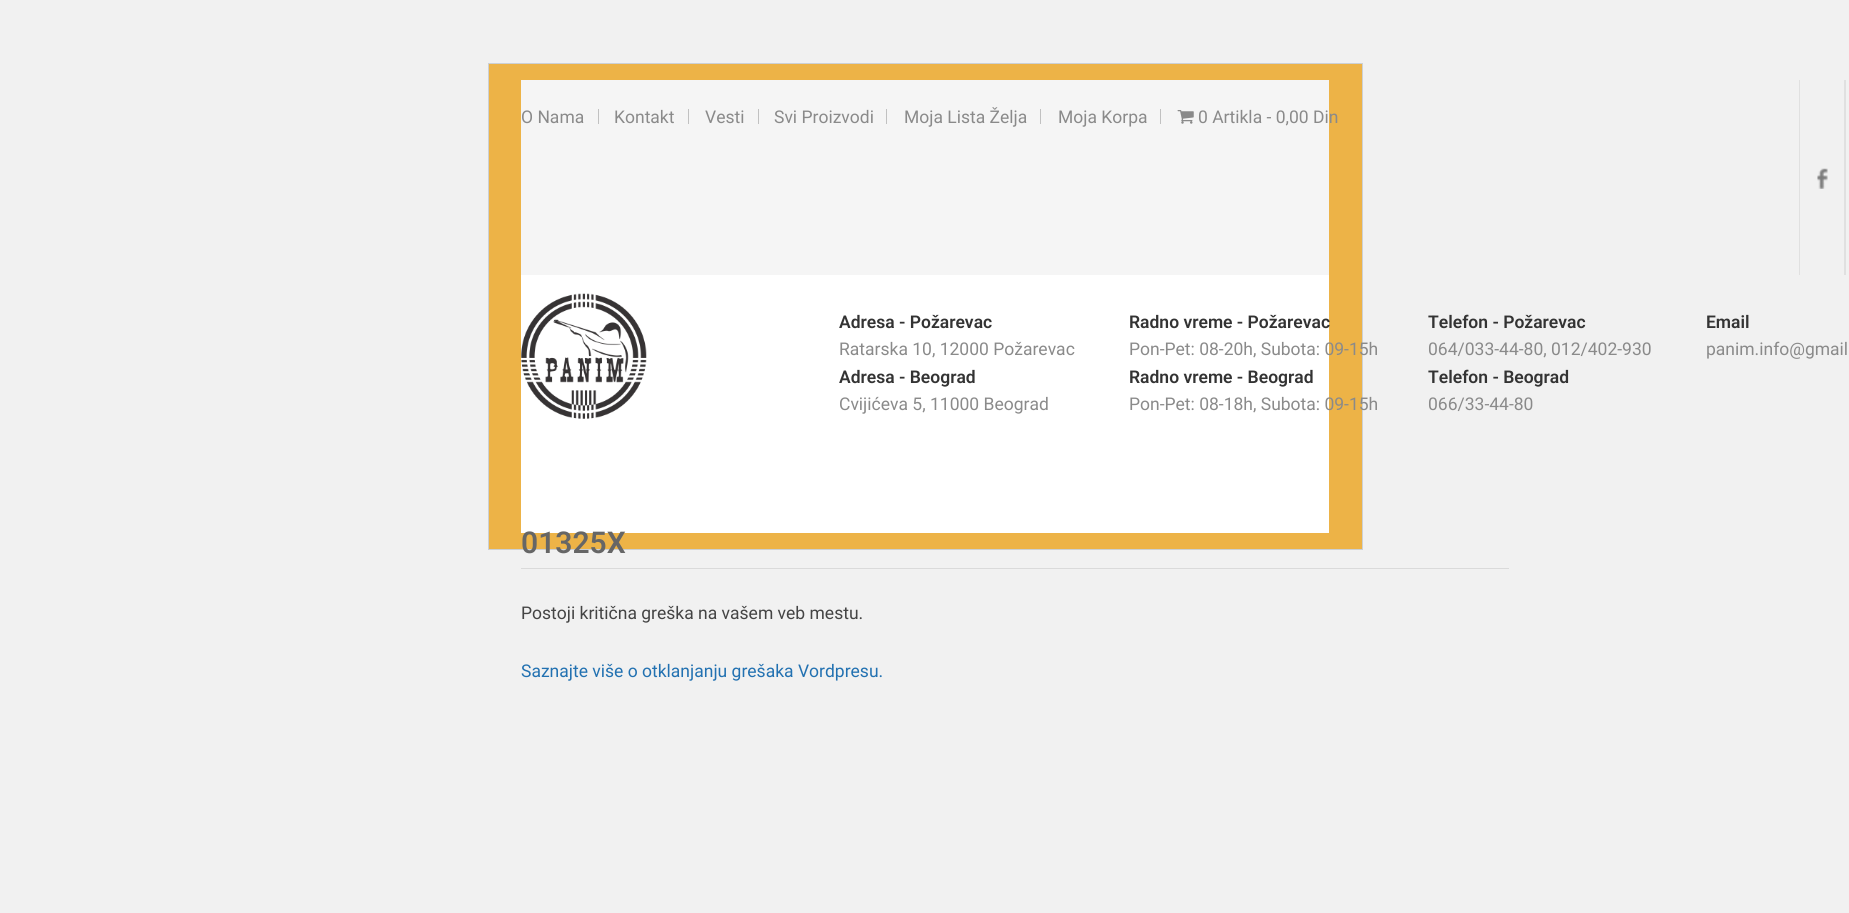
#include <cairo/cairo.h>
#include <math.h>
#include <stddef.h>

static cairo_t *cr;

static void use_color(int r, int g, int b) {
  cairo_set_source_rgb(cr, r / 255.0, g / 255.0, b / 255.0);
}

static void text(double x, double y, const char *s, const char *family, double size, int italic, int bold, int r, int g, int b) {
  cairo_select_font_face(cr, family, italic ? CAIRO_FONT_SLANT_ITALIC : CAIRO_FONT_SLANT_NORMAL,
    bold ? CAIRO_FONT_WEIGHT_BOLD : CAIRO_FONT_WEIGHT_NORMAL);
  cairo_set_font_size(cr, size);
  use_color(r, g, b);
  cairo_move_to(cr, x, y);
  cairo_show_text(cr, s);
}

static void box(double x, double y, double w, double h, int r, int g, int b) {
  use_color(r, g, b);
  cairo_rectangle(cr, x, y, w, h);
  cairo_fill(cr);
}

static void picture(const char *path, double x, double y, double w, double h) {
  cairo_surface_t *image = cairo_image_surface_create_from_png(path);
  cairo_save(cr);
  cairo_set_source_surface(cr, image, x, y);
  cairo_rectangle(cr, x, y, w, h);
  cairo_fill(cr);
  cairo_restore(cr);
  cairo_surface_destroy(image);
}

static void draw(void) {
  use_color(241, 241, 241);
  cairo_paint(cr);
  use_color(237, 179, 71);
  cairo_rectangle(cr, 488.5, 63.5, 874, 486);
  cairo_fill_preserve(cr);
  use_color(204, 208, 212);
  cairo_set_line_width(cr, 1);
  cairo_stroke(cr);
  box(521, 275, 808, 258, 255, 255, 255);
  box(521, 80, 808, 195, 245, 245, 245);
  box(598, 109, 1, 15, 193, 193, 193);
  box(688, 109, 1, 15, 193, 193, 193);
  box(758, 109, 1, 15, 193, 193, 193);
  box(886, 109, 1, 15, 193, 193, 193);
  box(1040, 109, 1, 15, 193, 193, 193);
  box(1160, 109, 1, 15, 193, 193, 193);
  picture("img_01.png", 1177, 110, 17, 14);
  picture("img_02.png", 1817, 168, 11, 21);
  box(1844, 80, 2, 195, 224, 224, 224);
  box(1799, 80, 1, 195, 224, 224, 224);
  picture("img_03.png", 521, 293, 126, 126);
  box(521, 568, 988, 1, 218, 218, 218);
  text(521, 123, "O Nama", "Roboto", 17.5, 0, 0, 138, 138, 138);
  text(614, 123, "Kontakt", "Roboto", 17.5, 0, 0, 138, 138, 138);
  text(705, 123, "Vesti", "Roboto", 17.5, 0, 0, 138, 138, 138);
  text(774, 123, "Svi Proizvodi", "Roboto", 17.5, 0, 0, 138, 138, 138);
  text(904, 123, "Moja Lista Želja", "Roboto", 17.5, 0, 0, 138, 138, 138);
  text(1058, 123, "Moja Korpa", "Roboto", 17.5, 0, 0, 138, 138, 138);
  text(1198, 123, "0 Artikla - 0,00 Din", "Roboto", 17.5, 0, 0, 138, 138, 138);
  text(839, 328, "Adresa - Požarevac", "Roboto SemiBold", 17.5, 0, 0, 51, 51, 51);
  text(839, 355, "Ratarska 10, 12000 Požarevac", "Roboto", 17.5, 0, 0, 138, 138, 138);
  text(839, 383, "Adresa - Beograd", "Roboto SemiBold", 17.5, 0, 0, 51, 51, 51);
  text(839, 410, "Cvijićeva 5, 11000 Beograd", "Roboto", 17.5, 0, 0, 138, 138, 138);
  text(1129, 328, "Radno vreme - Požarevac", "Roboto SemiBold", 17.5, 0, 0, 51, 51, 51);
  text(1129, 355, "Pon-Pet: 08-20h, Subota: 09-15h", "Roboto", 17.5, 0, 0, 138, 138, 138);
  text(1129, 383, "Radno vreme - Beograd", "Roboto SemiBold", 17.5, 0, 0, 51, 51, 51);
  text(1129, 410, "Pon-Pet: 08-18h, Subota: 09-15h", "Roboto", 17.5, 0, 0, 138, 138, 138);
  text(1428, 328, "Telefon - Požarevac", "Roboto SemiBold", 17.5, 0, 0, 51, 51, 51);
  text(1428, 355, "064/033-44-80, 012/402-930", "Roboto", 17.5, 0, 0, 138, 138, 138);
  text(1428, 383, "Telefon - Beograd", "Roboto SemiBold", 17.5, 0, 0, 51, 51, 51);
  text(1428, 410, "066/33-44-80", "Roboto", 17.5, 0, 0, 138, 138, 138);
  text(1706, 328, "Email", "Roboto SemiBold", 17.5, 0, 0, 51, 51, 51);
  text(1706, 355, "panim.info@gmail", "Roboto", 17.5, 0, 0, 138, 138, 138);
  text(521, 553, "01325X", "Roboto SemiBold", 30, 0, 0, 102, 102, 102);
  text(521, 619, "Postoji kritična greška na vašem veb mestu.", "Roboto", 17.5, 0, 0, 68, 68, 68);
  text(521, 677, "Saznajte više o otklanjanju grešaka Vordpresu.", "Roboto", 17.5, 0, 0, 34, 113, 177);
}

int main(void) {
  cairo_surface_t *surface = cairo_image_surface_create(CAIRO_FORMAT_RGB24, 1849, 913);
  cr = cairo_create(surface);
  cairo_font_options_t *options = cairo_font_options_create();
  cairo_font_options_set_hint_metrics(options, CAIRO_HINT_METRICS_OFF);
  cairo_font_options_set_hint_style(options, CAIRO_HINT_STYLE_NONE);
  cairo_set_font_options(cr, options);
  cairo_set_miter_limit(cr, 4);
  draw();
  cairo_surface_write_to_png(surface, "out.png");
  cairo_font_options_destroy(options);
  cairo_destroy(cr);
  cairo_surface_destroy(surface);
  return 0;
}
